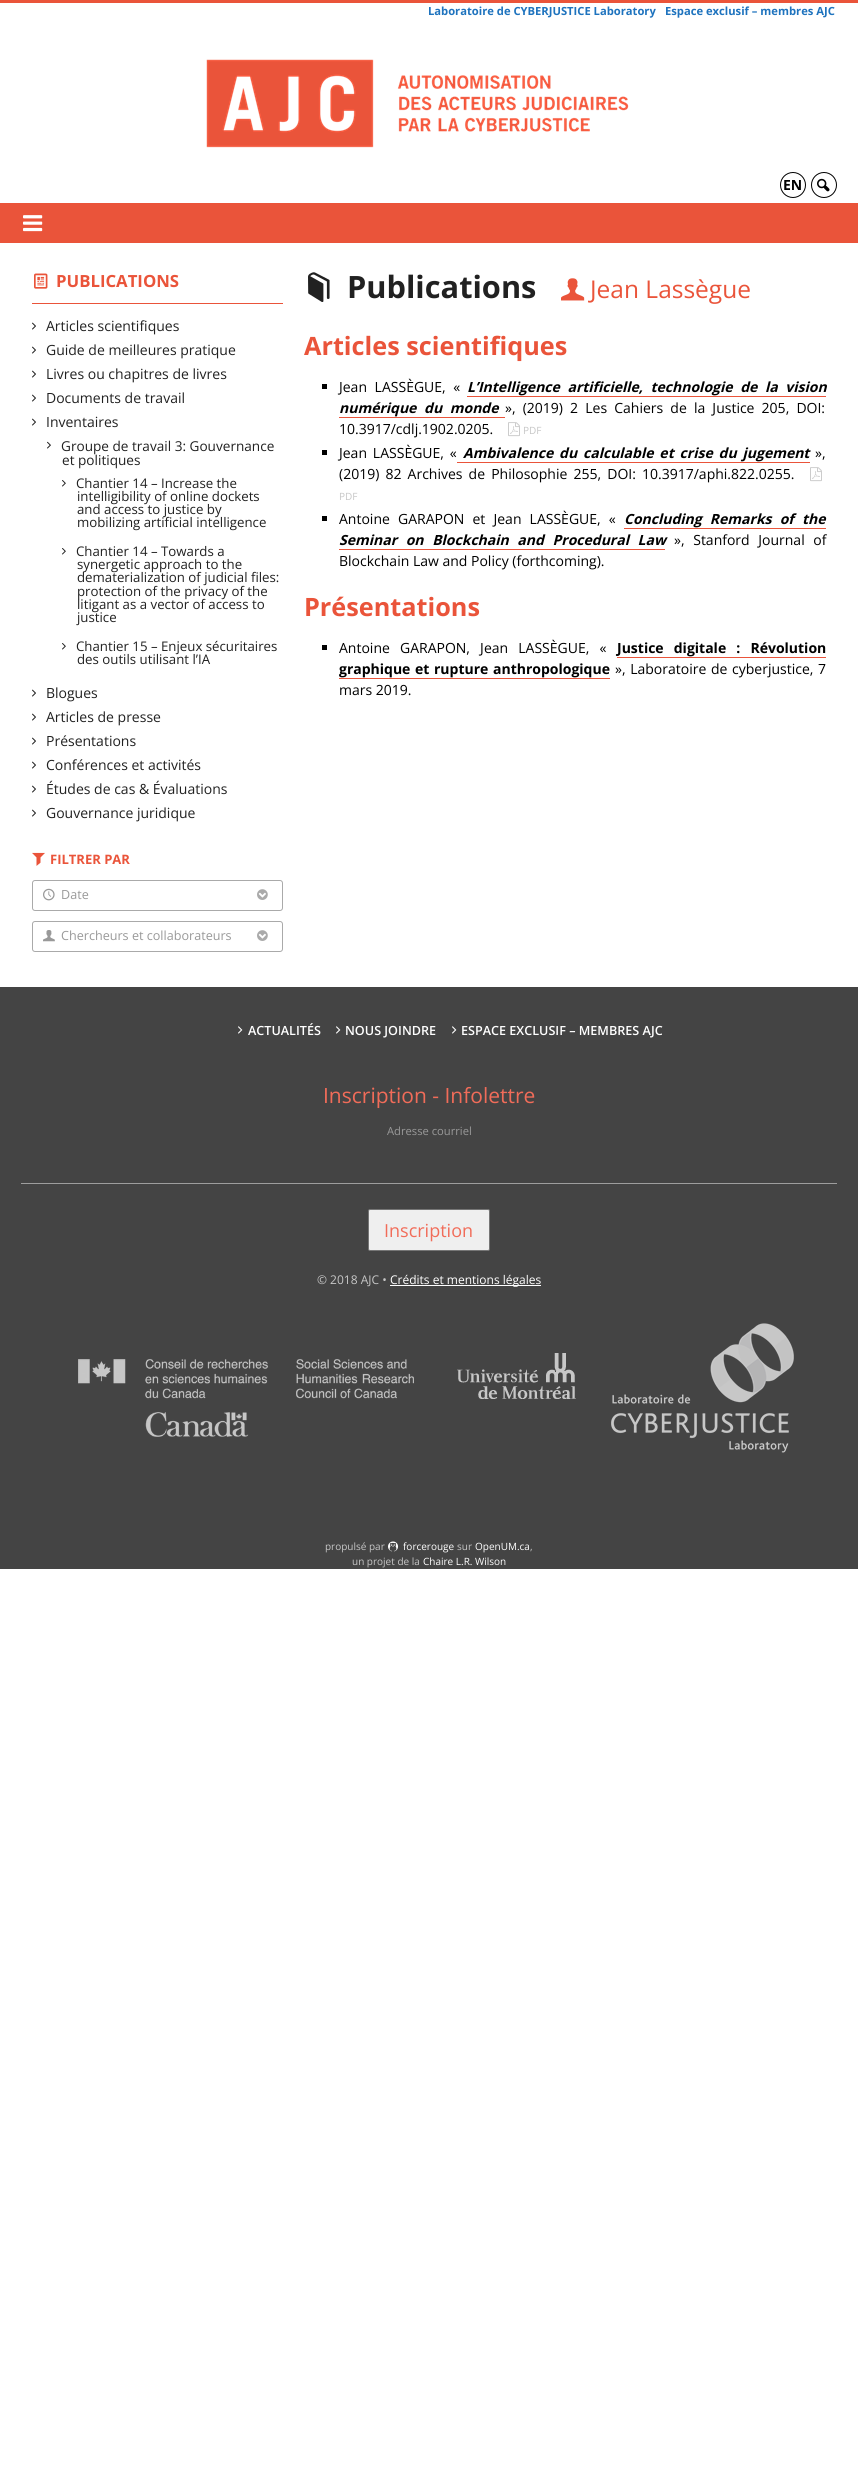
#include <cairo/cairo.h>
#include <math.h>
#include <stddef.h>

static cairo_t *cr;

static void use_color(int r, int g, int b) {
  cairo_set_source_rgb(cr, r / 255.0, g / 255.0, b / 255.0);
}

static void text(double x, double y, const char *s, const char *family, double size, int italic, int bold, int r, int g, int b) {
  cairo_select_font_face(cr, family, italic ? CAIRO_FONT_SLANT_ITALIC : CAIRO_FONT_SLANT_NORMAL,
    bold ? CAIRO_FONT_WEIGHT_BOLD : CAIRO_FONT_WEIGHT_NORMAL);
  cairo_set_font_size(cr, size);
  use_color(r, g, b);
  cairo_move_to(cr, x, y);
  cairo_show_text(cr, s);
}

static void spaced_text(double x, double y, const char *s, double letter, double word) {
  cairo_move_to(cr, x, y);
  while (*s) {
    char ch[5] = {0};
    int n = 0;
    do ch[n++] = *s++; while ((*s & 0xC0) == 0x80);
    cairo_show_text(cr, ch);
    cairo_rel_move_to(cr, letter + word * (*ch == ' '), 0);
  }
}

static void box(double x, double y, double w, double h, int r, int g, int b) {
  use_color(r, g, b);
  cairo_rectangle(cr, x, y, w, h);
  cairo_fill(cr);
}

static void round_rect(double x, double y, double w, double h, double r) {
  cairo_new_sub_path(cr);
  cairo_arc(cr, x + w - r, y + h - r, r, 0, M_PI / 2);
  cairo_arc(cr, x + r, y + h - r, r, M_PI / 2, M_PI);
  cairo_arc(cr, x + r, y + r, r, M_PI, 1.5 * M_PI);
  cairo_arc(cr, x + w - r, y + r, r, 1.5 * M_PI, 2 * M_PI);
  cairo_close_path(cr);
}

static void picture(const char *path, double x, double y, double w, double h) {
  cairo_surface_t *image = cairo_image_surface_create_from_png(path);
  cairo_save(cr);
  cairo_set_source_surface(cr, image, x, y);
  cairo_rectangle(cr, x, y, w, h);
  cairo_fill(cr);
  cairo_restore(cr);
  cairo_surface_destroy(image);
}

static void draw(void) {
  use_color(255, 255, 255);
  cairo_paint(cr);
  box(0, 0, 858, 3, 234, 84, 58);
  picture("img_01.png", 206, 59, 423, 89);
  cairo_arc(cr, 793, 185, 12.5, 0, 2 * M_PI);
  use_color(0, 0, 0);
  cairo_set_line_width(cr, 1);
  cairo_stroke(cr);
  cairo_arc(cr, 824, 185, 12.5, 0, 2 * M_PI);
  cairo_stroke(cr);
  picture("img_02.png", 817, 178, 13, 14);
  box(0, 203, 858, 40, 234, 84, 58);
  picture("img_03.png", 23, 215, 20, 17);
  box(32, 303, 251, 1, 234, 84, 58);
  picture("img_04.png", 34, 273, 14, 16);
  picture("img_05.png", 32, 322, 4, 8);
  picture("img_05.png", 32, 346, 4, 8);
  picture("img_05.png", 32, 370, 4, 8);
  picture("img_05.png", 32, 394, 4, 8);
  picture("img_05.png", 32, 418, 4, 8);
  picture("img_06.png", 47, 441, 4, 8);
  picture("img_07.png", 62, 480, 4, 7);
  picture("img_07.png", 62, 548, 4, 7);
  picture("img_07.png", 62, 643, 4, 7);
  picture("img_05.png", 32, 689, 4, 8);
  picture("img_05.png", 32, 713, 4, 8);
  picture("img_05.png", 32, 737, 4, 8);
  picture("img_05.png", 32, 761, 4, 8);
  picture("img_05.png", 32, 785, 4, 8);
  picture("img_05.png", 32, 809, 4, 8);
  picture("img_08.png", 32, 852, 13, 14);
  round_rect(32.5, 880.5, 250, 30, 2.5);
  use_color(170, 170, 170);
  cairo_stroke(cr);
  picture("img_09.png", 43, 888, 12, 13);
  picture("img_10.png", 257, 889, 11, 11);
  round_rect(32.5, 921.5, 250, 30, 2.5);
  cairo_stroke(cr);
  picture("img_11.png", 43, 930, 12, 12);
  picture("img_10.png", 257, 930, 11, 11);
  picture("img_12.png", 308, 272, 22, 30);
  picture("img_13.png", 561, 278, 24, 23);
  box(322, 384, 5, 5, 0, 0, 0);
  box(467, 396, 359, 1, 234, 84, 58);
  box(339, 417, 166, 1, 234, 84, 58);
  picture("img_14.png", 508, 422, 12, 15);
  box(322, 450, 5, 5, 0, 0, 0);
  box(457, 462, 353, 1, 234, 84, 58);
  picture("img_14.png", 810, 467, 12, 15);
  box(322, 516, 5, 5, 0, 0, 0);
  box(624, 528, 202, 1, 234, 84, 58);
  box(339, 549, 326, 1, 234, 84, 58);
  box(322, 645, 5, 5, 0, 0, 0);
  box(617, 657, 209, 1, 234, 84, 58);
  box(339, 678, 271, 1, 234, 84, 58);
  box(0, 987, 858, 582, 68, 68, 68);
  picture("img_15.png", 238, 1026, 5, 8);
  picture("img_15.png", 336, 1026, 5, 8);
  picture("img_15.png", 452, 1026, 5, 8);
  box(21, 1183, 816, 1, 158, 158, 158);
  use_color(239, 239, 239);
  round_rect(368.5, 1209.5, 121, 41, 1.5);
  cairo_fill_preserve(cr);
  use_color(118, 118, 118);
  cairo_stroke(cr);
  box(390, 1285, 151, 1, 255, 255, 255);
  picture("img_16.png", 78, 1359, 336, 78);
  picture("img_17.png", 457, 1353, 119, 46);
  picture("img_18.png", 611, 1323, 183, 130);
  picture("img_19.png", 388, 1541, 11, 11);
  text(428, 15, "Laboratoire de CYBERJUSTICE Laboratory", "Open Sans", 11.2, 0, 1, 30, 115, 190);
  text(665, 15, "Espace exclusif – membres AJC", "Open Sans", 11.2, 0, 1, 30, 115, 190);
  text(783, 190, "EN", "Open Sans", 14, 0, 1, 0, 0, 0);
  text(56, 287, "PUBLICATIONS", "Open Sans", 16.75, 0, 1, 234, 84, 58);
  text(46, 331, "Articles scientifiques", "Open Sans", 14, 0, 0, 33, 33, 33);
  text(46, 355, "Guide de meilleures pratique", "Open Sans", 14, 0, 0, 33, 33, 33);
  text(46, 379, "Livres ou chapitres de livres", "Open Sans", 14, 0, 0, 33, 33, 33);
  text(46, 403, "Documents de travail", "Open Sans", 14, 0, 0, 33, 33, 33);
  text(46, 427, "Inventaires", "Open Sans", 14, 0, 0, 33, 33, 33);
  text(61, 451, "Groupe de travail 3: Gouvernance", "Open Sans", 13.6, 0, 0, 33, 33, 33);
  text(62, 465, "et politiques", "Open Sans", 13.6, 0, 0, 33, 33, 33);
  text(76, 488, "Chantier 14 – Increase the", "Open Sans", 13.25, 0, 0, 33, 33, 33);
  text(77, 501, "intelligibility of online dockets", "Open Sans", 13.25, 0, 0, 33, 33, 33);
  text(77, 514, "and access to justice by", "Open Sans", 13.25, 0, 0, 33, 33, 33);
  text(77, 527, "mobilizing artificial intelligence", "Open Sans", 13.25, 0, 0, 33, 33, 33);
  text(76, 556, "Chantier 14 – Towards a", "Open Sans", 13.25, 0, 0, 33, 33, 33);
  text(77, 569, "synergetic approach to the", "Open Sans", 13.25, 0, 0, 33, 33, 33);
  text(77, 582, "dematerialization of judicial files:", "Open Sans", 13.25, 0, 0, 33, 33, 33);
  text(77, 596, "protection of the privacy of the", "Open Sans", 13.25, 0, 0, 33, 33, 33);
  text(77, 609, "litigant as a vector of access to", "Open Sans", 13.25, 0, 0, 33, 33, 33);
  text(77, 622, "justice", "Open Sans", 13.25, 0, 0, 33, 33, 33);
  text(76, 651, "Chantier 15 – Enjeux sécuritaires", "Open Sans", 13.25, 0, 0, 33, 33, 33);
  text(77, 664, "des outils utilisant l’IA", "Open Sans", 13.25, 0, 0, 33, 33, 33);
  text(46, 698, "Blogues", "Open Sans", 14, 0, 0, 33, 33, 33);
  text(46, 722, "Articles de presse", "Open Sans", 14, 0, 0, 33, 33, 33);
  text(46, 746, "Présentations", "Open Sans", 14, 0, 0, 33, 33, 33);
  text(46, 770, "Conférences et activités", "Open Sans", 14, 0, 0, 33, 33, 33);
  text(46, 794, "Études de cas & Évaluations", "Open Sans", 14, 0, 0, 33, 33, 33);
  text(46, 818, "Gouvernance juridique", "Open Sans", 14, 0, 0, 33, 33, 33);
  text(50, 864, "FILTRER PAR", "Open Sans", 13, 0, 1, 234, 84, 58);
  text(61, 899, "Date", "Open Sans", 12.6, 0, 0, 153, 153, 153);
  text(61, 940, "Chercheurs et collaborateurs", "Open Sans", 12.6, 0, 0, 153, 153, 153);
  text(347, 298, "Publications", "Open Sans", 30.75, 0, 1, 33, 33, 33);
  text(590, 298, "Jean Lassègue", "Open Sans", 24.5, 0, 0, 234, 84, 58);
  text(304, 355, "Articles scientifiques", "Open Sans", 25.25, 0, 1, 234, 84, 58);
  cairo_select_font_face(cr, "Open Sans", CAIRO_FONT_SLANT_NORMAL, CAIRO_FONT_WEIGHT_NORMAL);
  cairo_set_font_size(cr, 14);
  use_color(0, 0, 0);
  spaced_text(339, 392, "Jean LASSÈGUE, «", 0, 4);
  cairo_select_font_face(cr, "Open Sans", CAIRO_FONT_SLANT_ITALIC, CAIRO_FONT_WEIGHT_BOLD);
  spaced_text(467, 392, "L’Intelligence artificielle, technologie de la vision", 0, 4);
  spaced_text(339, 413, "numérique du monde", 0, 4);
  cairo_select_font_face(cr, "Open Sans", CAIRO_FONT_SLANT_NORMAL, CAIRO_FONT_WEIGHT_NORMAL);
  spaced_text(505, 413, "», (2019) 2 Les Cahiers de la Justice 205, DOI:", 0, 3.5);
  text(339, 434, "10.3917/cdlj.1902.0205.", "Open Sans", 14, 0, 0, 0, 0, 0);
  text(523, 434, "PDF", "Open Sans", 10, 0, 0, 199, 199, 199);
  cairo_set_font_size(cr, 14);
  use_color(0, 0, 0);
  spaced_text(339, 458, "Jean LASSÈGUE, «", 0, 2.25);
  cairo_select_font_face(cr, "Open Sans", CAIRO_FONT_SLANT_ITALIC, CAIRO_FONT_WEIGHT_BOLD);
  spaced_text(463, 458, "Ambivalence du calculable et crise du jugement", 0, 2.25);
  text(815, 458, "»,", "Open Sans", 14, 0, 0, 0, 0, 0);
  spaced_text(339, 479, "(2019) 82 Archives de Philosophie 255, DOI: 10.3917/aphi.822.0255.", 0, 2.5);
  text(339, 500, "PDF", "Open Sans", 10, 0, 0, 199, 199, 199);
  cairo_set_font_size(cr, 14);
  use_color(0, 0, 0);
  spaced_text(339, 524, "Antoine GARAPON et Jean LASSÈGUE, «", 0, 4.5);
  cairo_select_font_face(cr, "Open Sans", CAIRO_FONT_SLANT_ITALIC, CAIRO_FONT_WEIGHT_BOLD);
  spaced_text(624, 524, "Concluding Remarks of the", 0, 4.5);
  spaced_text(339, 545, "Seminar on Blockchain and Procedural Law", 0, 5);
  cairo_select_font_face(cr, "Open Sans", CAIRO_FONT_SLANT_NORMAL, CAIRO_FONT_WEIGHT_NORMAL);
  spaced_text(674, 545, "», Stanford Journal of", 0, 5);
  text(339, 566, "Blockchain Law and Policy (forthcoming).", "Open Sans", 14, 0, 0, 0, 0, 0);
  text(304, 616, "Présentations", "Open Sans", 25.25, 0, 1, 234, 84, 58);
  cairo_select_font_face(cr, "Open Sans", CAIRO_FONT_SLANT_NORMAL, CAIRO_FONT_WEIGHT_NORMAL);
  cairo_set_font_size(cr, 14);
  use_color(0, 0, 0);
  spaced_text(339, 653, "Antoine GARAPON, Jean LASSÈGUE, «", 0, 6.5);
  cairo_select_font_face(cr, "Open Sans", CAIRO_FONT_SLANT_NORMAL, CAIRO_FONT_WEIGHT_BOLD);
  spaced_text(617, 653, "Justice digitale : Révolution", 0, 6.5);
  spaced_text(339, 674, "graphique et rupture anthropologique", 0, 1);
  cairo_select_font_face(cr, "Open Sans", CAIRO_FONT_SLANT_NORMAL, CAIRO_FONT_WEIGHT_NORMAL);
  spaced_text(615, 674, "», Laboratoire de cyberjustice, 7", 0, 1);
  text(339, 695, "mars 2019.", "Open Sans", 14, 0, 0, 0, 0, 0);
  text(248, 1035, "ACTUALITÉS", "Open Sans SemiBold", 12.6, 0, 0, 255, 255, 255);
  text(345, 1035, "NOUS JOINDRE", "Open Sans SemiBold", 12.6, 0, 0, 255, 255, 255);
  text(461, 1035, "ESPACE EXCLUSIF – MEMBRES AJC", "Open Sans SemiBold", 12.6, 0, 0, 255, 255, 255);
  text(323, 1103, "Inscription - Infolettre", "Open Sans", 21, 0, 0, 241, 108, 89);
  text(387, 1135, "Adresse courriel", "Open Sans", 11.2, 0, 0, 153, 153, 153);
  text(384, 1237, "Inscription", "Open Sans", 18, 0, 0, 241, 108, 89);
  text(317, 1284, "© 2018 AJC •", "Open Sans", 12, 0, 0, 199, 199, 199);
  text(390, 1284, "Crédits et mentions légales", "Open Sans", 12, 0, 0, 255, 255, 255);
  text(325, 1550, "propulsé par", "Open Sans", 10, 0, 0, 199, 199, 199);
  text(403, 1550, "forcerouge", "Open Sans", 10, 0, 0, 255, 255, 255);
  text(457, 1550, "sur", "Open Sans", 10, 0, 0, 199, 199, 199);
  text(475, 1550, "OpenUM.ca", "Open Sans", 10, 0, 0, 255, 255, 255);
  text(530, 1550, ",", "Open Sans", 10, 0, 0, 199, 199, 199);
  text(352, 1565, "un projet de la", "Open Sans", 10, 0, 0, 199, 199, 199);
  text(423, 1565, "Chaire L.R. Wilson", "Open Sans", 10, 0, 0, 255, 255, 255);
}

int main(void) {
  cairo_surface_t *surface = cairo_image_surface_create(CAIRO_FORMAT_RGB24, 858, 2488);
  cr = cairo_create(surface);
  cairo_font_options_t *options = cairo_font_options_create();
  cairo_font_options_set_hint_metrics(options, CAIRO_HINT_METRICS_OFF);
  cairo_font_options_set_hint_style(options, CAIRO_HINT_STYLE_NONE);
  cairo_set_font_options(cr, options);
  cairo_set_miter_limit(cr, 4);
  draw();
  cairo_surface_write_to_png(surface, "out.png");
  cairo_font_options_destroy(options);
  cairo_destroy(cr);
  cairo_surface_destroy(surface);
  return 0;
}
